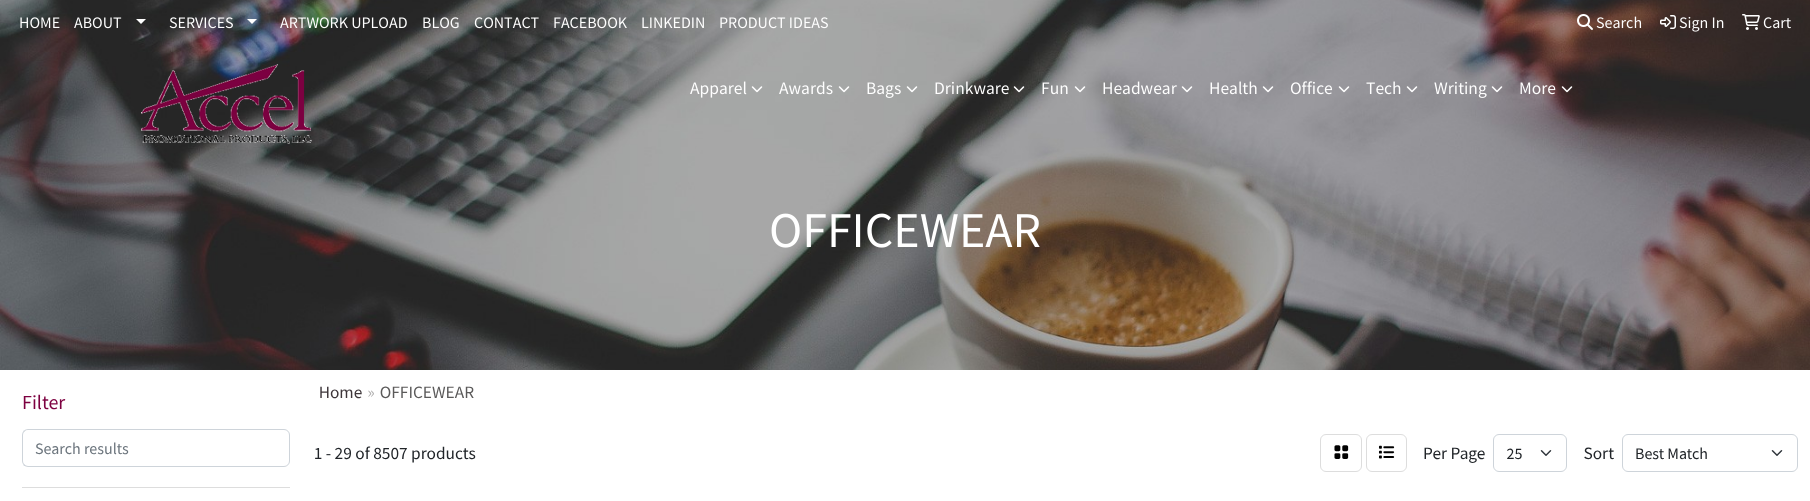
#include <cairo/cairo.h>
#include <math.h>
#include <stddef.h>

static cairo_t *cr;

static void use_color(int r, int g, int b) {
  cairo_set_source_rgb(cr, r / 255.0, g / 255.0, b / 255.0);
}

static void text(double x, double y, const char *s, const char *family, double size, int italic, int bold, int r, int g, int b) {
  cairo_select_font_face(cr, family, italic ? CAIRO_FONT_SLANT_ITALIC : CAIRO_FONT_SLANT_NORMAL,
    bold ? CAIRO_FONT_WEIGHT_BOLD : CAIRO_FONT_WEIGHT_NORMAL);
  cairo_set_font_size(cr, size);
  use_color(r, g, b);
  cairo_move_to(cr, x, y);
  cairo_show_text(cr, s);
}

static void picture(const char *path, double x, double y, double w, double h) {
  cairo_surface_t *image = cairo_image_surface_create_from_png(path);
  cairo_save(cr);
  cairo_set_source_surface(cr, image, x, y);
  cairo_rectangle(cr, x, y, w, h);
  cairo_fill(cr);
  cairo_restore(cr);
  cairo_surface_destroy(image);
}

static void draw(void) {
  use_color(255, 255, 255);
  cairo_paint(cr);
  picture("img_16.png", 0, 0, 1810, 370);
  use_color(255, 255, 255);
  cairo_new_path(cr);
  cairo_move_to(cr, 136, 19);
  cairo_line_to(cr, 146, 19);
  cairo_line_to(cr, 141, 24);
  cairo_close_path(cr);
  cairo_fill(cr);
  cairo_new_path(cr);
  cairo_move_to(cr, 247, 19);
  cairo_line_to(cr, 257, 19);
  cairo_line_to(cr, 252, 24);
  cairo_close_path(cr);
  cairo_fill(cr);
  picture("img_01.png", 1577, 14, 16, 16);
  picture("img_02.png", 1660, 15, 16, 14);
  picture("img_03.png", 1742, 14, 18, 16);
  picture("img_04.png", 141, 64, 171, 80);
  picture("img_05.png", 751, 86, 12, 7);
  picture("img_06.png", 838, 86, 12, 7);
  picture("img_07.png", 906, 86, 12, 7);
  picture("img_08.png", 1013, 86, 12, 7);
  picture("img_09.png", 1074, 86, 12, 7);
  picture("img_10.png", 1181, 86, 12, 7);
  picture("img_11.png", 1262, 86, 12, 7);
  picture("img_12.png", 1338, 86, 12, 7);
  picture("img_13.png", 1406, 86, 12, 7);
  picture("img_14.png", 1491, 86, 12, 7);
  picture("img_15.png", 1561, 86, 12, 7);
  picture("img_17.png", 22, 386, 1776, 102);
  text(19, 28, "HOME", "Source Sans Pro", 16, 0, 0, 255, 255, 255);
  text(74, 28, "ABOUT", "Source Sans Pro", 16, 0, 0, 255, 255, 255);
  text(169, 28, "SERVICES", "Source Sans Pro", 16, 0, 0, 255, 255, 255);
  text(280, 28, "ARTWORK UPLOAD", "Source Sans Pro", 16, 0, 0, 255, 255, 255);
  text(422, 28, "BLOG", "Source Sans Pro", 16, 0, 0, 255, 255, 255);
  text(474, 28, "CONTACT", "Source Sans Pro", 16, 0, 0, 255, 255, 255);
  text(553, 28, "FACEBOOK", "Source Sans Pro", 16, 0, 0, 255, 255, 255);
  text(641, 28, "LINKEDIN", "Source Sans Pro", 16, 0, 0, 255, 255, 255);
  text(719, 28, "PRODUCT IDEAS", "Source Sans Pro", 16, 0, 0, 255, 255, 255);
  text(1596, 28, "Search", "Source Sans Pro", 16, 0, 0, 255, 255, 255);
  text(1679, 28, "Sign In", "Source Sans Pro", 16, 0, 0, 255, 255, 255);
  text(1763, 28, "Cart", "Source Sans Pro", 16, 0, 0, 255, 255, 255);
  text(690, 94, "Apparel", "Source Sans Pro", 17.5, 0, 0, 255, 255, 255);
  text(779, 94, "Awards", "Source Sans Pro", 17.5, 0, 0, 255, 255, 255);
  text(866, 94, "Bags", "Source Sans Pro", 17.5, 0, 0, 255, 255, 255);
  text(934, 94, "Drinkware", "Source Sans Pro", 17.5, 0, 0, 255, 255, 255);
  text(1041, 94, "Fun", "Source Sans Pro", 17.5, 0, 0, 255, 255, 255);
  text(1102, 94, "Headwear", "Source Sans Pro", 17.5, 0, 0, 255, 255, 255);
  text(1209, 94, "Health", "Source Sans Pro", 17.5, 0, 0, 255, 255, 255);
  text(1290, 94, "Office", "Source Sans Pro", 17.5, 0, 0, 255, 255, 255);
  text(1366, 94, "Tech", "Source Sans Pro", 17.5, 0, 0, 255, 255, 255);
  text(1434, 94, "Writing", "Source Sans Pro", 17.5, 0, 0, 255, 255, 255);
  text(1519, 94, "More", "Source Sans Pro", 17.5, 0, 0, 255, 255, 255);
  text(769, 247, "OFFICEWEAR", "Source Sans Pro", 50, 0, 0, 255, 255, 255);
}

int main(void) {
  cairo_surface_t *surface = cairo_image_surface_create(CAIRO_FORMAT_RGB24, 1810, 501);
  cr = cairo_create(surface);
  cairo_font_options_t *options = cairo_font_options_create();
  cairo_font_options_set_hint_metrics(options, CAIRO_HINT_METRICS_OFF);
  cairo_font_options_set_hint_style(options, CAIRO_HINT_STYLE_NONE);
  cairo_set_font_options(cr, options);
  cairo_set_miter_limit(cr, 4);
  draw();
  cairo_surface_write_to_png(surface, "out.png");
  cairo_font_options_destroy(options);
  cairo_destroy(cr);
  cairo_surface_destroy(surface);
  return 0;
}
